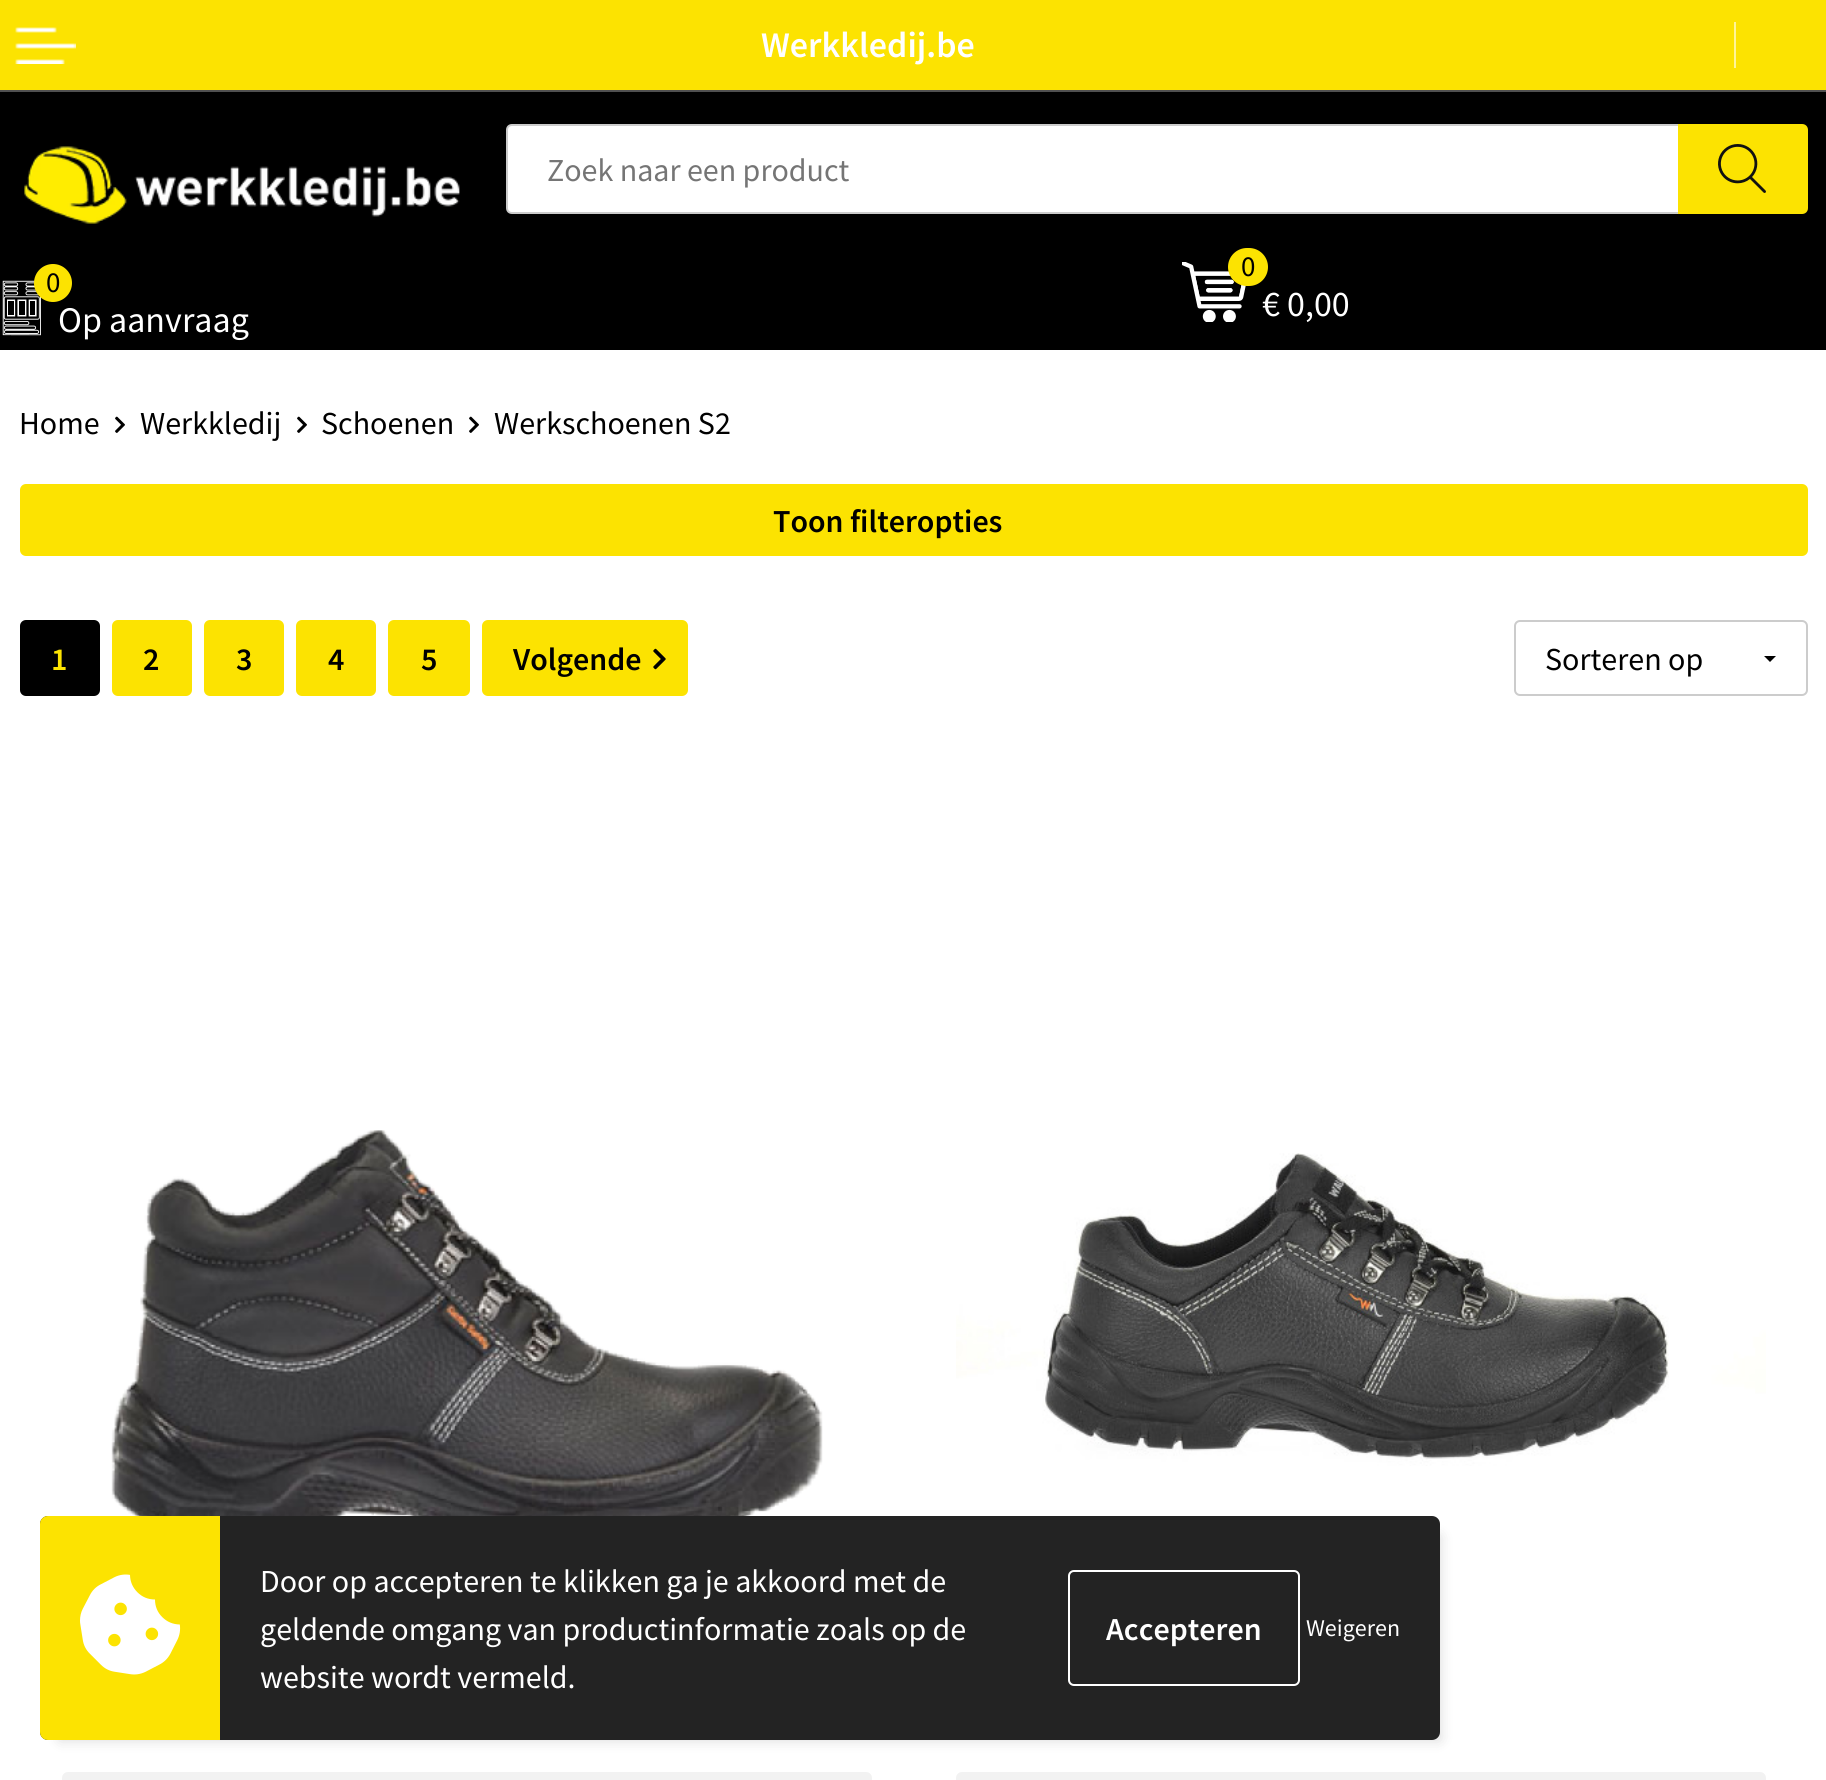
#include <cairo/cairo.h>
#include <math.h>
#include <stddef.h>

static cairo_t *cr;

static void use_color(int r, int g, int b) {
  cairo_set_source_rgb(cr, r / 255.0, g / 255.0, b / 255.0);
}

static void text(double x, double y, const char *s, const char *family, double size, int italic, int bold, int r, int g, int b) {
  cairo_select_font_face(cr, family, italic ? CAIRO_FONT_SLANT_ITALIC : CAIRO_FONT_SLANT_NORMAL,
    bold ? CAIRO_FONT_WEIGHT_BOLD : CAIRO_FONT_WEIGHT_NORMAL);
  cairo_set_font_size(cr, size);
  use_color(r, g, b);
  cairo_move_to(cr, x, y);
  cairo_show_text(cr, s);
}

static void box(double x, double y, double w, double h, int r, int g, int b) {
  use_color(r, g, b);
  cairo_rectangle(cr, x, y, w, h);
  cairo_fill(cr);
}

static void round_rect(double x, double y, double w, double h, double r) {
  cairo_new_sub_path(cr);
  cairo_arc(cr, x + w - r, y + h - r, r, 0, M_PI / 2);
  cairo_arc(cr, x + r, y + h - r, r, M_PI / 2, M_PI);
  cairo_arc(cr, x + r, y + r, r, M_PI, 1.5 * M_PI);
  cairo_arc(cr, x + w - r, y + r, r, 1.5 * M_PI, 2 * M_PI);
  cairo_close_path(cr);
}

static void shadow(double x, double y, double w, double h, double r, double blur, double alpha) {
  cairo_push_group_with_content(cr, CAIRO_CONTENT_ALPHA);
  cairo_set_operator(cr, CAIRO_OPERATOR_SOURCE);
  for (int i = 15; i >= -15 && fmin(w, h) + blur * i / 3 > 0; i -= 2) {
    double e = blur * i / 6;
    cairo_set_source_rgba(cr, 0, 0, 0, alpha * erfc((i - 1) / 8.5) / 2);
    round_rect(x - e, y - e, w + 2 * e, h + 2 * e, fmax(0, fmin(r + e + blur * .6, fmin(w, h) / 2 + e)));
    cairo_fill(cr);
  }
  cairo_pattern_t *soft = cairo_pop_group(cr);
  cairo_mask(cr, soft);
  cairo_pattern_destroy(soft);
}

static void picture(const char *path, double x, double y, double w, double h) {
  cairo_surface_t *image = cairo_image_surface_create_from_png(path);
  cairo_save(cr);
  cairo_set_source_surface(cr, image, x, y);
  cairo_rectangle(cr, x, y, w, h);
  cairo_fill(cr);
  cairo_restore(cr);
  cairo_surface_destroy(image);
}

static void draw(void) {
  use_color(255, 255, 255);
  cairo_paint(cr);
  box(0, 92, 1826, 258, 0, 0, 0);
  box(0, 0, 1826, 90, 252, 227, 1);
  picture("img_01.png", 15, 27, 61, 37);
  box(1734, 22, 2, 46, 254, 244, 153);
  picture("img_02.png", 24, 146, 436, 78);
  use_color(255, 255, 255);
  cairo_new_path(cr);
  cairo_move_to(cr, 512, 125);
  cairo_line_to(cr, 1679, 125);
  cairo_line_to(cr, 1679, 213);
  cairo_line_to(cr, 512, 213);
  cairo_curve_to(cr, 509, 213, 507, 211, 507, 208);
  cairo_line_to(cr, 507, 130);
  cairo_curve_to(cr, 507, 127, 509, 125, 512, 125);
  cairo_close_path(cr);
  cairo_fill_preserve(cr);
  use_color(204, 204, 204);
  cairo_stroke(cr);
  use_color(252, 227, 1);
  cairo_new_path(cr);
  cairo_move_to(cr, 1678, 124);
  cairo_line_to(cr, 1802, 124);
  cairo_curve_to(cr, 1805.5, 124, 1808, 126.5, 1808, 130);
  cairo_line_to(cr, 1808, 208);
  cairo_curve_to(cr, 1808, 211.5, 1805.5, 214, 1802, 214);
  cairo_line_to(cr, 1678, 214);
  cairo_close_path(cr);
  cairo_fill(cr);
  picture("img_03.png", 1718, 144, 48, 49);
  box(0, 90, 1826, 2, 80, 80, 80);
  picture("img_04.png", 2, 280, 39, 56);
  use_color(252, 227, 1);
  cairo_arc(cr, 53, 283, 19, 0, 2 * M_PI);
  cairo_fill(cr);
  picture("img_05.png", 1182, 262, 64, 60);
  round_rect(1228, 248, 40, 38, 19);
  cairo_fill(cr);
  picture("img_06.png", 115, 416, 10, 17);
  picture("img_06.png", 297, 416, 10, 17);
  picture("img_06.png", 469, 416, 10, 17);
  round_rect(20, 484, 1788, 72, 6);
  cairo_fill(cr);
  use_color(0, 0, 0);
  round_rect(21, 621, 78, 74, 5);
  cairo_fill_preserve(cr);
  cairo_stroke(cr);
  use_color(252, 227, 1);
  round_rect(113, 621, 78, 74, 5);
  cairo_fill_preserve(cr);
  cairo_stroke(cr);
  round_rect(205, 621, 78, 74, 5);
  cairo_fill_preserve(cr);
  cairo_stroke(cr);
  round_rect(297, 621, 78, 74, 5);
  cairo_fill_preserve(cr);
  cairo_stroke(cr);
  round_rect(389, 621, 80, 74, 5);
  cairo_fill_preserve(cr);
  cairo_stroke(cr);
  round_rect(483, 621, 204, 74, 5);
  cairo_fill_preserve(cr);
  cairo_stroke(cr);
  picture("img_07.png", 653, 648, 13, 22);
  use_color(0, 0, 0);
  cairo_new_path(cr);
  cairo_move_to(cr, 1776, 656);
  cairo_line_to(cr, 1770, 662);
  cairo_line_to(cr, 1764, 656);
  cairo_close_path(cr);
  cairo_fill(cr);
  round_rect(1515, 621, 292, 74, 5);
  use_color(204, 204, 204);
  cairo_stroke(cr);
  picture("img_08.png", 111, 1130, 712, 386);
  use_color(242, 242, 242);
  round_rect(62, 1772, 810, 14, 6);
  cairo_fill(cr);
  picture("img_09.png", 956, 1153, 810, 313);
  round_rect(956, 1772, 810, 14, 6);
  cairo_fill(cr);
  use_color(0, 0, 0);
  shadow(60, 1536, 1380, 204, 0, 7, 0.15);
  use_color(35, 35, 35);
  round_rect(40, 1516, 1400, 224, 8);
  cairo_fill(cr);
  use_color(252, 227, 1);
  cairo_new_path(cr);
  cairo_move_to(cr, 48, 1516);
  cairo_line_to(cr, 220, 1516);
  cairo_line_to(cr, 220, 1740);
  cairo_line_to(cr, 48, 1740);
  cairo_curve_to(cr, 43.5, 1740, 40, 1736.5, 40, 1732);
  cairo_line_to(cr, 40, 1524);
  cairo_curve_to(cr, 40, 1519.5, 43.5, 1516, 48, 1516);
  cairo_close_path(cr);
  cairo_fill(cr);
  picture("img_10.png", 80, 1574, 101, 101);
  round_rect(1069, 1571, 230, 114, 5);
  use_color(255, 255, 255);
  cairo_stroke(cr);
  text(761, 57, "Werkkledij.be", "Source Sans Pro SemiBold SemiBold", 36, 0, 0, 255, 255, 255);
  text(547, 181, "Zoek naar een product", "Source Sans Pro", 32, 0, 0, 117, 117, 117);
  text(46, 292, "0", "Source Sans Pro", 29, 0, 0, 0, 0, 0);
  text(58, 332, "Op aanvraag", "Source Sans Pro", 36, 0, 0, 255, 255, 255);
  text(1241, 276, "0", "Source Sans Pro", 29, 0, 0, 0, 0, 0);
  text(1262, 316, "€ 0,00", "Source Sans Pro", 36, 0, 0, 255, 255, 255);
  text(19, 434, "Home", "Source Sans Pro", 32, 0, 0, 0, 0, 0);
  text(140, 434, "Werkkledij", "Source Sans Pro", 32, 0, 0, 0, 0, 0);
  text(321, 434, "Schoenen", "Source Sans Pro", 32, 0, 0, 0, 0, 0);
  text(494, 434, "Werkschoenen S2", "Source Sans Pro", 32, 0, 0, 0, 0, 0);
  text(773, 532, "Toon filteropties", "Source Sans Pro SemiBold SemiBold", 32, 0, 0, 0, 0, 0);
  text(51, 670, "1", "Source Sans Pro SemiBold SemiBold", 32, 0, 0, 252, 227, 1);
  text(143, 670, "2", "Source Sans Pro SemiBold SemiBold", 32, 0, 0, 0, 0, 0);
  text(236, 670, "3", "Source Sans Pro SemiBold SemiBold", 32, 0, 0, 0, 0, 0);
  text(328, 670, "4", "Source Sans Pro SemiBold SemiBold", 32, 0, 0, 0, 0, 0);
  text(421, 670, "5", "Source Sans Pro SemiBold SemiBold", 32, 0, 0, 0, 0, 0);
  text(513, 670, "Volgende", "Source Sans Pro SemiBold SemiBold", 32, 0, 0, 0, 0, 0);
  text(1545, 670, "Sorteren op", "Source Sans Pro", 32, 0, 0, 0, 0, 0);
  text(260, 1592, "Door op accepteren te klikken ga je akkoord met de", "Source Sans Pro", 32, 0, 0, 255, 255, 255);
  text(260, 1640, "geldende omgang van productinformatie zoals op de", "Source Sans Pro", 32, 0, 0, 255, 255, 255);
  text(1106, 1640, "Accepteren", "Source Sans Pro SemiBold SemiBold", 32, 0, 0, 255, 255, 255);
  text(1306, 1636, "Weigeren", "Source Sans Pro", 24, 0, 0, 255, 255, 255);
  text(260, 1688, "website wordt vermeld.", "Source Sans Pro", 32, 0, 0, 255, 255, 255);
}

int main(void) {
  cairo_surface_t *surface = cairo_image_surface_create(CAIRO_FORMAT_RGB24, 1826, 1780);
  cr = cairo_create(surface);
  cairo_font_options_t *options = cairo_font_options_create();
  cairo_font_options_set_hint_metrics(options, CAIRO_HINT_METRICS_OFF);
  cairo_font_options_set_hint_style(options, CAIRO_HINT_STYLE_NONE);
  cairo_set_font_options(cr, options);
  cairo_set_miter_limit(cr, 4);
  draw();
  cairo_surface_write_to_png(surface, "out.png");
  cairo_font_options_destroy(options);
  cairo_destroy(cr);
  cairo_surface_destroy(surface);
  return 0;
}
